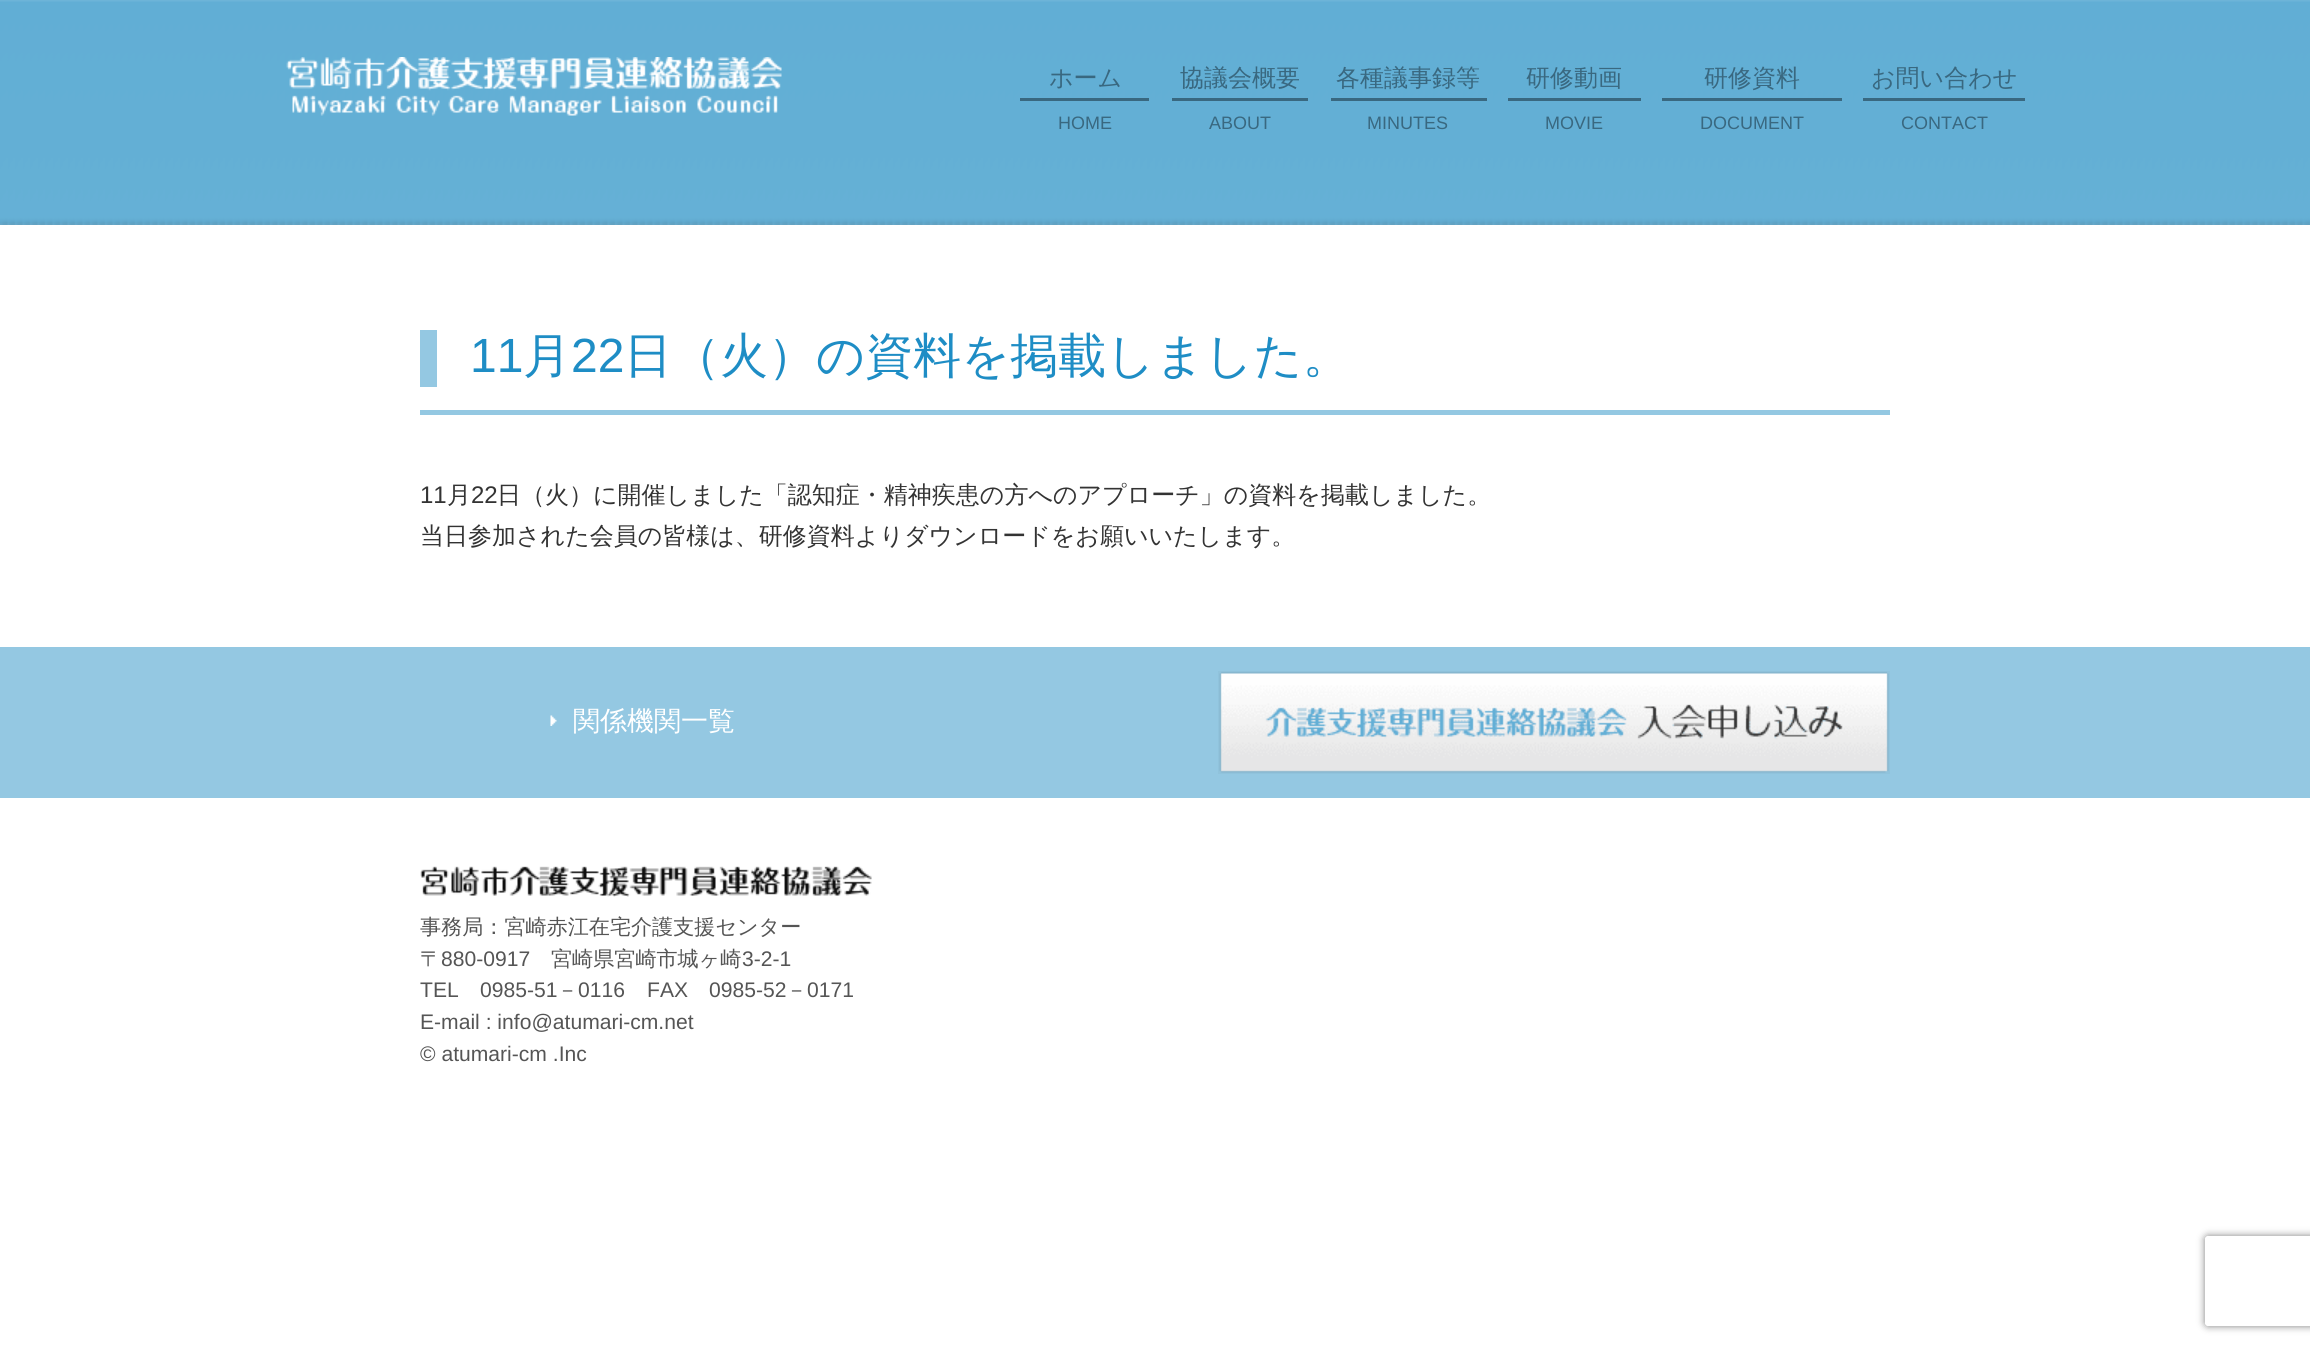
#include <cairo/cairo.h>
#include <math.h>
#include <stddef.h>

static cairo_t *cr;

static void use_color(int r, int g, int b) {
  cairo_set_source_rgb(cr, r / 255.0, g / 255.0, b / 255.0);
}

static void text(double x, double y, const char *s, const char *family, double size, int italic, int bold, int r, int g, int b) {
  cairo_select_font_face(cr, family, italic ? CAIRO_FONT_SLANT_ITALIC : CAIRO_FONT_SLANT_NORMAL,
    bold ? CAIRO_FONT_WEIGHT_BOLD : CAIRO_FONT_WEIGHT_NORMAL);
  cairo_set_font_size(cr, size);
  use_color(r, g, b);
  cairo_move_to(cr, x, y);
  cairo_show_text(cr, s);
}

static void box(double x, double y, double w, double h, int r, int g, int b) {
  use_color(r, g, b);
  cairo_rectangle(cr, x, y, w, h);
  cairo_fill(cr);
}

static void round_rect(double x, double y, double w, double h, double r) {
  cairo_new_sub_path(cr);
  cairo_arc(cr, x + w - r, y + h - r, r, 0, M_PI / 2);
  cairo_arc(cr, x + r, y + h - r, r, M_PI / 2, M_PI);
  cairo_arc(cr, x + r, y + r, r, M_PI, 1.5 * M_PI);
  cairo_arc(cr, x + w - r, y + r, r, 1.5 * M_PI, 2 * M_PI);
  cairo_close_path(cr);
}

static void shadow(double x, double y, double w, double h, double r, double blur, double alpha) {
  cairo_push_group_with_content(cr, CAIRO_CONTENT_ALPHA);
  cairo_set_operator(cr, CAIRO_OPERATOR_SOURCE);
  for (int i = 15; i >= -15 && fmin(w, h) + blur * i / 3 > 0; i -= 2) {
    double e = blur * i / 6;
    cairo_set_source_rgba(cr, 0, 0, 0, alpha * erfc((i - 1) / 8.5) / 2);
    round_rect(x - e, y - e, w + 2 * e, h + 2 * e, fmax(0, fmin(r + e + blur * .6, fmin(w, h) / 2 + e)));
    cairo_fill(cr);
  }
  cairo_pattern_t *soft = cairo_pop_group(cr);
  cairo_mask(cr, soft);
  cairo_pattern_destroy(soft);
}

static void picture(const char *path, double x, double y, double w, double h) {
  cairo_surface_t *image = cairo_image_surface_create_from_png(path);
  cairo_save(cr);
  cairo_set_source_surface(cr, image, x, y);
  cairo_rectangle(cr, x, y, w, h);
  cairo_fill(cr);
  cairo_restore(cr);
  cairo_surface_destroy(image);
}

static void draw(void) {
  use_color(255, 255, 255);
  cairo_paint(cr);
  picture("img_01.png", 0, 0, 2310, 225);
  picture("img_02.png", 286, 57, 496, 59);
  box(1020, 98, 129, 3, 57, 104, 128);
  box(1172, 98, 136, 3, 57, 104, 128);
  box(1331, 98, 156, 3, 57, 104, 128);
  box(1508, 98, 133, 3, 57, 104, 128);
  box(1662, 98, 180, 3, 57, 104, 128);
  box(1863, 98, 162, 3, 57, 104, 128);
  box(420, 410, 1470, 5, 148, 200, 226);
  box(420, 330, 17, 57, 148, 200, 226);
  box(0, 647, 2310, 151, 148, 200, 226);
  picture("img_03.png", 550, 715, 7, 11);
  picture("img_04.png", 1218, 671, 672, 103);
  picture("img_05.png", 420, 865, 452, 32);
  cairo_save(cr);
  cairo_set_fill_rule(cr, CAIRO_FILL_RULE_EVEN_ODD);
  cairo_new_path(cr);
  cairo_move_to(cr, 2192, 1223);
  cairo_line_to(cr, 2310, 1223);
  cairo_line_to(cr, 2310, 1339);
  cairo_line_to(cr, 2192, 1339);
  cairo_close_path(cr);
  cairo_move_to(cr, 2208, 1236);
  cairo_line_to(cr, 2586, 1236);
  cairo_curve_to(cr, 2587.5, 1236, 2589, 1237.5, 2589, 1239);
  cairo_line_to(cr, 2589, 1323);
  cairo_curve_to(cr, 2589, 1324.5, 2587.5, 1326, 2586, 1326);
  cairo_line_to(cr, 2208, 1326);
  cairo_curve_to(cr, 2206.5, 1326, 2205, 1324.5, 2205, 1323);
  cairo_line_to(cr, 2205, 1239);
  cairo_curve_to(cr, 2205, 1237.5, 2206.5, 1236, 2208, 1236);
  cairo_close_path(cr);
  cairo_clip(cr);
  use_color(128, 128, 128);
  shadow(2205, 1236, 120, 90, 3, 4, 1);
  cairo_restore(cr);
  text(1049, 86, "ホーム", "WenQuanYi Zen Hei Medium", 24, 0, 0, 57, 104, 128);
  text(1058, 129, "HOME", "Liberation Sans", 18, 0, 0, 57, 104, 128);
  text(1180, 86, "協議会概要", "WenQuanYi Zen Hei Medium", 24, 0, 0, 57, 104, 128);
  text(1209, 129, "ABOUT", "Liberation Sans", 18, 0, 0, 57, 104, 128);
  text(1336, 86, "各種議事録等", "WenQuanYi Zen Hei Medium", 24, 0, 0, 57, 104, 128);
  text(1367, 129, "MINUTES", "Liberation Sans", 18, 0, 0, 57, 104, 128);
  text(1526, 86, "研修動画", "WenQuanYi Zen Hei Medium", 24, 0, 0, 57, 104, 128);
  text(1545, 129, "MOVIE", "Liberation Sans", 18, 0, 0, 57, 104, 128);
  text(1704, 86, "研修資料", "WenQuanYi Zen Hei Medium", 24, 0, 0, 57, 104, 128);
  text(1700, 129, "DOCUMENT", "Liberation Sans", 18, 0, 0, 57, 104, 128);
  text(1871, 86, "お問い合わせ", "WenQuanYi Zen Hei Medium", 24, 0, 0, 57, 104, 128);
  text(1901, 129, "CONTACT", "Liberation Sans", 18, 0, 0, 57, 104, 128);
  text(470, 372, "11", "Liberation Sans", 48, 0, 0, 30, 141, 197);
  text(523, 372, "月", "WenQuanYi Zen Hei Medium", 48, 0, 0, 30, 141, 197);
  text(571, 372, "22", "Liberation Sans", 48, 0, 0, 30, 141, 197);
  text(624, 372, "日（火）の資料を掲載しました。", "WenQuanYi Zen Hei Medium", 48, 0, 0, 30, 141, 197);
  text(420, 503, "11", "Liberation Sans", 24, 0, 0, 51, 51, 51);
  text(447, 503, "月", "WenQuanYi Zen Hei Medium", 24, 0, 0, 51, 51, 51);
  text(471, 503, "22", "Liberation Sans", 24, 0, 0, 51, 51, 51);
  text(497, 503, "日（火）に開催しました「認知症・精神疾患の方へのアプローチ」の資料を掲載しました。", "WenQuanYi Zen Hei Medium", 24, 0, 0, 51, 51, 51);
  text(420, 544, "当日参加された会員の皆様は、研修資料よりダウンロードをお願いいたします。", "WenQuanYi Zen Hei Medium", 24, 0, 0, 51, 51, 51);
  text(573, 730, "関係機関一覧", "WenQuanYi Zen Hei Medium", 27, 0, 0, 255, 255, 255);
  text(420, 934, "事務局：宮崎赤江在宅介護支援センター", "WenQuanYi Zen Hei Medium", 21.1, 0, 0, 85, 85, 85);
  text(420, 966, "〒", "WenQuanYi Zen Hei Medium", 21.1, 0, 0, 85, 85, 85);
  text(441, 966, "880-0917", "Liberation Sans", 21.1, 0, 0, 85, 85, 85);
  text(551, 966, "宮崎県宮崎市城ヶ崎", "WenQuanYi Zen Hei Medium", 21.1, 0, 0, 85, 85, 85);
  text(742, 966, "3-2-1", "Liberation Sans", 21.1, 0, 0, 85, 85, 85);
  text(420, 997, "TEL", "Liberation Sans", 21.1, 0, 0, 85, 85, 85);
  text(480, 997, "0985-51", "Liberation Sans", 21.1, 0, 0, 85, 85, 85);
  text(557, 997, "－", "WenQuanYi Zen Hei Medium", 21.1, 0, 0, 85, 85, 85);
  text(578, 997, "0116", "Liberation Sans", 21.1, 0, 0, 85, 85, 85);
  text(647, 997, "FAX", "Liberation Sans", 21.1, 0, 0, 85, 85, 85);
  text(709, 997, "0985-52", "Liberation Sans", 21.1, 0, 0, 85, 85, 85);
  text(786, 997, "－", "WenQuanYi Zen Hei Medium", 21.1, 0, 0, 85, 85, 85);
  text(807, 997, "0171", "Liberation Sans", 21.1, 0, 0, 85, 85, 85);
  text(420, 1029, "E-mail : info@atumari-cm.net", "Liberation Sans", 21.1, 0, 0, 85, 85, 85);
  text(420, 1061, "© atumari-cm .Inc", "Liberation Sans", 21.1, 0, 0, 85, 85, 85);
}

int main(void) {
  cairo_surface_t *surface = cairo_image_surface_create(CAIRO_FORMAT_RGB24, 2310, 1346);
  cr = cairo_create(surface);
  cairo_font_options_t *options = cairo_font_options_create();
  cairo_font_options_set_hint_metrics(options, CAIRO_HINT_METRICS_OFF);
  cairo_font_options_set_hint_style(options, CAIRO_HINT_STYLE_NONE);
  cairo_set_font_options(cr, options);
  cairo_set_miter_limit(cr, 4);
  draw();
  cairo_surface_write_to_png(surface, "out.png");
  cairo_font_options_destroy(options);
  cairo_destroy(cr);
  cairo_surface_destroy(surface);
  return 0;
}
